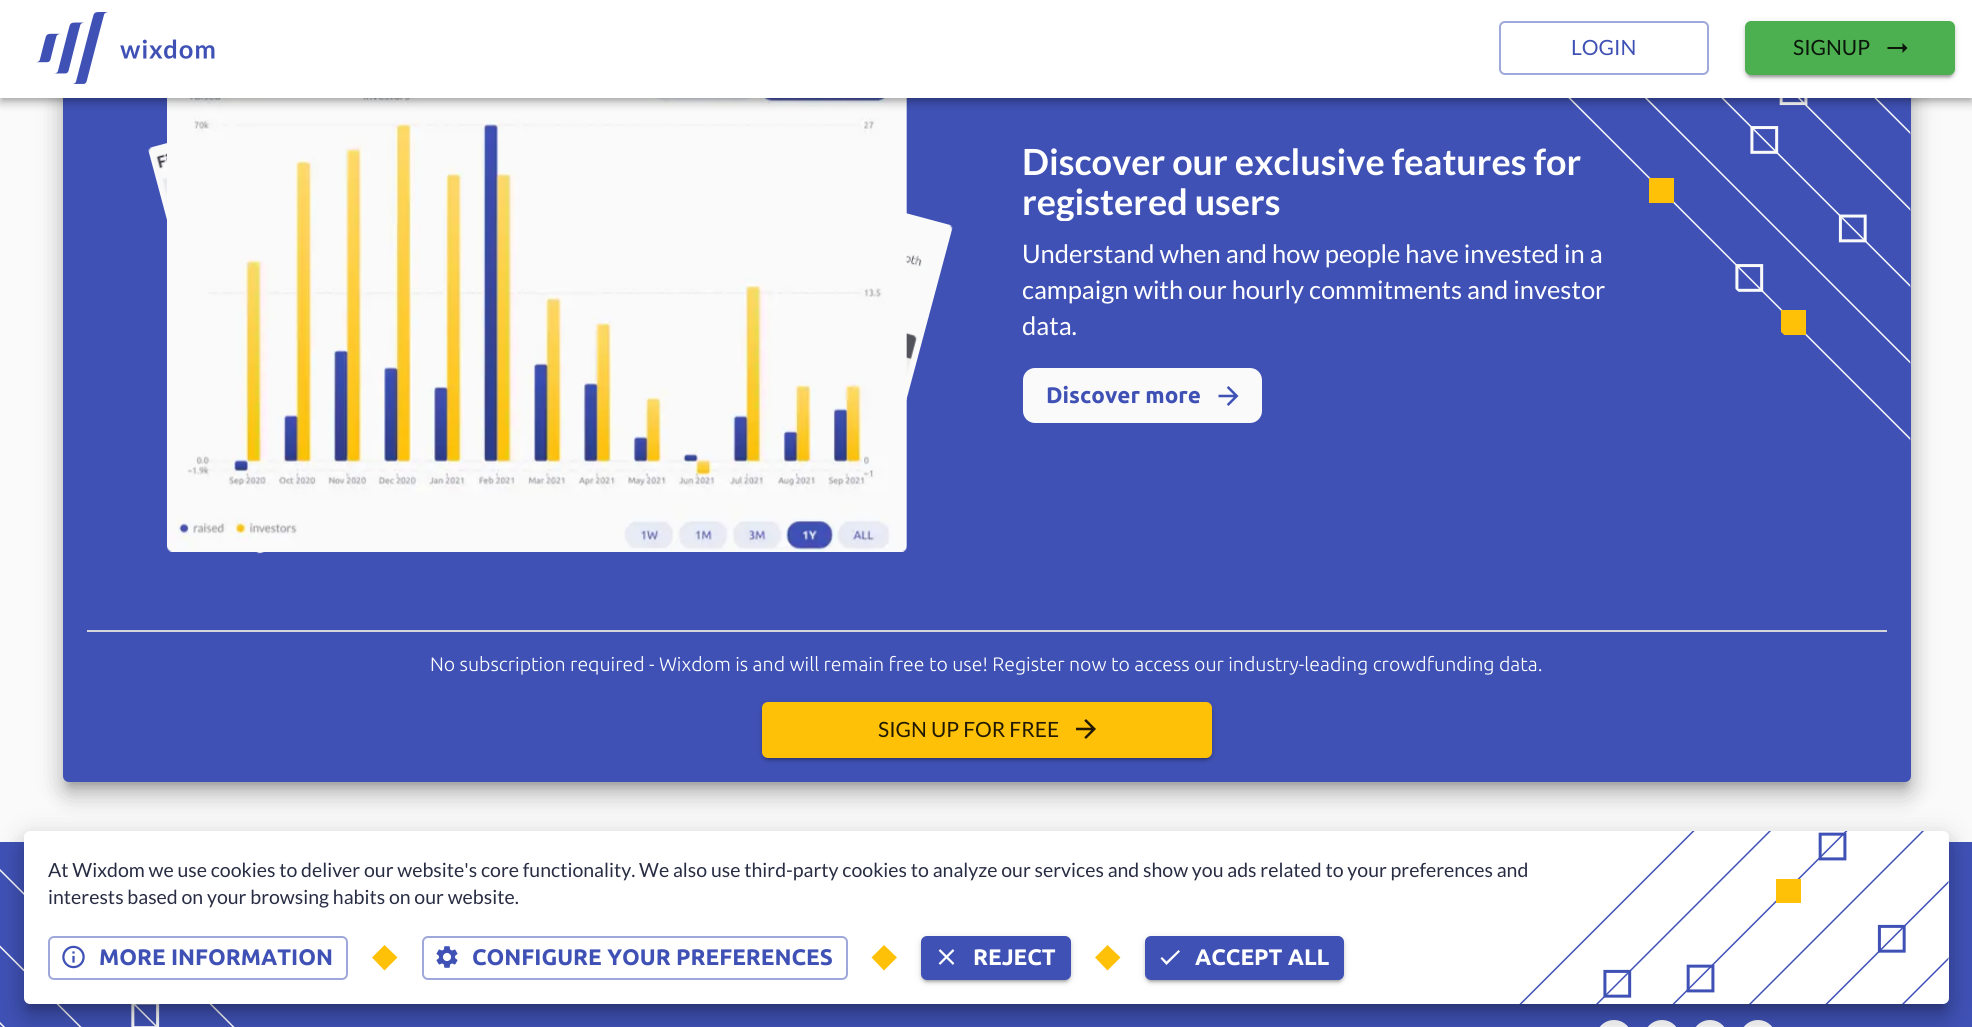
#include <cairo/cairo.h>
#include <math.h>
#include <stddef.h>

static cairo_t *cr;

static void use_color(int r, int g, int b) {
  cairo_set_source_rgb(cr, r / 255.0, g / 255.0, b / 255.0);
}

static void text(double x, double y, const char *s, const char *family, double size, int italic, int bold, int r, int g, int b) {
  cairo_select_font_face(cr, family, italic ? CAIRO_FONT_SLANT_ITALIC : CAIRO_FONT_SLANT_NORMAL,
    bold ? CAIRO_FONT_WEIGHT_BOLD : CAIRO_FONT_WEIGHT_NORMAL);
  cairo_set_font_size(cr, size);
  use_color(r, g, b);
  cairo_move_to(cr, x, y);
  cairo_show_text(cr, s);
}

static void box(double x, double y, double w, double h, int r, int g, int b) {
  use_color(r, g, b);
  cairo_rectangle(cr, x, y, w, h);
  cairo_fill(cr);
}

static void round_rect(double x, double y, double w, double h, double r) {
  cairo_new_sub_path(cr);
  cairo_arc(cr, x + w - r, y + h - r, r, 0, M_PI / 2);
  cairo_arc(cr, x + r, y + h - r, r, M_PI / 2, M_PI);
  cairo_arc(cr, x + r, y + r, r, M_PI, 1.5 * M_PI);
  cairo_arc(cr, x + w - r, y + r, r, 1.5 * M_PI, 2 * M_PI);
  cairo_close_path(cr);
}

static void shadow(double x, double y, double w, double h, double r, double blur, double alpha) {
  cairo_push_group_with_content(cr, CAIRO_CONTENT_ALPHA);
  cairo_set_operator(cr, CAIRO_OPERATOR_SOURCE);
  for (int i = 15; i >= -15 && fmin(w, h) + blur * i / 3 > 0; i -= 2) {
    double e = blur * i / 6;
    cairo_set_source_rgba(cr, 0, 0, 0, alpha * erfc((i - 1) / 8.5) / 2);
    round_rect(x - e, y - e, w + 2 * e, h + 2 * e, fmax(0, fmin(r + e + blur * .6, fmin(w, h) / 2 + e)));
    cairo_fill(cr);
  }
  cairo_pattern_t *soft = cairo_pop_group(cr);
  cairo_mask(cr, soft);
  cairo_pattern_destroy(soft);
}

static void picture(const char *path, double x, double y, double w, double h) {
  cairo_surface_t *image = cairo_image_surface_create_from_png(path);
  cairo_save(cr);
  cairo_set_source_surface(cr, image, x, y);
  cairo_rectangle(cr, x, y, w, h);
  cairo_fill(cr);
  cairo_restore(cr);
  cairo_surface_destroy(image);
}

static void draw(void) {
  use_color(250, 250, 250);
  cairo_paint(cr);
  use_color(0, 0, 0);
  shadow(59, -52, 1857, 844, 11, 13.5, 0.12);
  shadow(62, -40, 1851, 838, 8, 10.5, 0.14);
  shadow(68, -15, 1839, 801, 1.5, 4.5, 0.2);
  use_color(63, 81, 181);
  round_rect(63, -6, 1848, 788, 6);
  cairo_fill(cr);
  picture("img_03.png", 148, 143, 116, 411);
  picture("img_04.png", 906, 213, 47, 188);
  picture("img_02.png", 167, 98, 740, 454);
  use_color(250, 250, 250);
  round_rect(1023, 368, 239, 55, 12);
  cairo_fill(cr);
  picture("img_05.png", 1218, 386, 21, 20);
  box(87, 630, 1800, 2, 212, 213, 218);
  use_color(0, 0, 0);
  shadow(762, 704, 450, 55, 6, 4, 0.12);
  shadow(762, 705, 450, 56, 6, 1.5, 0.14);
  shadow(765, 710, 444, 49, 3, 1, 0.2);
  use_color(255, 193, 7);
  round_rect(762, 702, 450, 56, 6);
  cairo_fill(cr);
  picture("img_07.png", 1076, 719, 20, 20);
  box(0, 842, 1972, 185, 63, 81, 181);
  picture("img_08.png", 0, 869, 235, 158);
  picture("img_09.png", 1599, 1020, 30, 7);
  picture("img_09.png", 1647, 1020, 30, 7);
  picture("img_09.png", 1695, 1020, 30, 7);
  picture("img_09.png", 1743, 1020, 30, 7);
  use_color(0, 0, 0);
  shadow(20, 833, 1933, 181, 11, 13.5, 0.12);
  shadow(23, 845, 1927, 175, 8, 10.5, 0.14);
  shadow(29, 845, 1915, 163, 1.5, 4.5, 0.2);
  use_color(255, 255, 255);
  round_rect(24, 831, 1925, 173, 6);
  cairo_fill(cr);
  round_rect(49, 937, 298, 42, 5);
  use_color(159, 168, 218);
  cairo_stroke(cr);
  picture("img_10.png", 62, 945, 23, 24);
  use_color(255, 193, 7);
  cairo_new_path(cr);
  cairo_move_to(cr, 384.5, 945);
  cairo_line_to(cr, 372, 957.5);
  cairo_line_to(cr, 384.5, 970.5);
  cairo_line_to(cr, 397.5, 957.5);
  cairo_close_path(cr);
  cairo_fill(cr);
  round_rect(423, 937, 424, 42, 5);
  use_color(159, 168, 218);
  cairo_stroke(cr);
  picture("img_11.png", 436, 946, 22, 22);
  use_color(255, 193, 7);
  cairo_new_path(cr);
  cairo_move_to(cr, 884, 945);
  cairo_line_to(cr, 871.5, 957.5);
  cairo_line_to(cr, 884, 970.5);
  cairo_line_to(cr, 897, 957.5);
  cairo_close_path(cr);
  cairo_fill(cr);
  use_color(0, 0, 0);
  shadow(921, 938, 150, 43, 6, 4, 0.12);
  shadow(921, 939, 150, 44, 6, 1.5, 0.14);
  shadow(924, 944, 144, 37, 3, 1, 0.2);
  use_color(63, 81, 181);
  round_rect(921, 936, 150, 44, 6);
  cairo_fill(cr);
  picture("img_12.png", 938, 949, 17, 16);
  use_color(255, 193, 7);
  cairo_new_path(cr);
  cairo_move_to(cr, 1107.5, 945);
  cairo_line_to(cr, 1095, 957.5);
  cairo_line_to(cr, 1107.5, 970.5);
  cairo_line_to(cr, 1120.5, 957.5);
  cairo_close_path(cr);
  cairo_fill(cr);
  use_color(0, 0, 0);
  shadow(1145, 938, 199, 43, 6, 4, 0.12);
  shadow(1145, 939, 199, 44, 6, 1.5, 0.14);
  shadow(1148, 944, 193, 37, 3, 1, 0.2);
  use_color(63, 81, 181);
  round_rect(1145, 936, 199, 44, 6);
  cairo_fill(cr);
  use_color(255, 255, 255);
  cairo_new_path(cr);
  cairo_move_to(cr, 1166.5, 961.5);
  cairo_line_to(cr, 1162, 957);
  cairo_line_to(cr, 1160.5, 958.5);
  cairo_line_to(cr, 1166.5, 965);
  cairo_line_to(cr, 1180, 951.5);
  cairo_line_to(cr, 1178.5, 950);
  cairo_close_path(cr);
  cairo_fill(cr);
  text(1022, 175, "Discover our exclusive features for", "Lato", 36, 0, 1, 255, 255, 255);
  cairo_save(cr);
  cairo_rectangle(cr, 1023, 143, 605, 78);
  cairo_clip(cr);
  text(1022, 215, "registered users", "Lato", 36, 0, 1, 255, 255, 255);
  cairo_restore(cr);
  text(1022, 263, "Understand when and how people have invested in a", "Lato", 25.5, 0, 0, 255, 255, 255);
  text(1022, 299, "campaign with our hourly commitments and investor", "Lato", 25.5, 0, 0, 255, 255, 255);
  text(1022, 335, "data.", "Lato", 25.5, 0, 0, 255, 255, 255);
  text(1046, 403, "Discover more", "Ubuntu", 22.5, 0, 1, 63, 81, 181);
  picture("img_06.png", 1568, 98, 343, 343);
  use_color(0, 0, 0);
  shadow(2, 5, 1969, 94, 0, 3, 0.2);
  shadow(0, 6, 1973, 98, 0, 4, 0.14);
  shadow(0, 2, 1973, 97, 0, 7.5, 0.12);
  box(0, 0, 1972, 98, 255, 255, 255);
  use_color(0, 0, 0);
  shadow(1748, 29, 204, 48, 3, 1, 0.2);
  shadow(1745, 24, 210, 54, 6, 1.5, 0.14);
  shadow(1745, 23, 210, 54, 6, 4, 0.12);
  use_color(76, 175, 80);
  round_rect(1745, 21, 210, 54, 6);
  cairo_fill(cr);
  use_color(10, 23, 10);
  cairo_new_path(cr);
  cairo_move_to(cr, 1902.5, 47);
  cairo_line_to(cr, 1887.5, 47);
  cairo_line_to(cr, 1887.5, 49);
  cairo_line_to(cr, 1902.5, 49);
  cairo_line_to(cr, 1902.5, 53);
  cairo_line_to(cr, 1907.5, 48);
  cairo_line_to(cr, 1902.5, 43);
  cairo_close_path(cr);
  cairo_fill(cr);
  text(1793, 55, "SIGNUP", "Lato", 21, 0, 0, 10, 23, 10);
  round_rect(1500, 22, 208, 52, 5);
  use_color(159, 168, 218);
  cairo_stroke(cr);
  text(1571, 55, "LOGIN", "Lato", 21, 0, 0, 63, 81, 181);
  picture("img_01.png", 36, 12, 179, 72);
  text(430, 671, "No subscription required - Wixdom is and will remain free to use! Register now to access our industry-leading crowdfunding data.", "Ubuntu Light", 19.5, 0, 0, 255, 255, 255);
  text(878, 737, "SIGN UP FOR FREE", "Lato", 21, 0, 0, 33, 25, 1);
  text(48, 877, "At Wixdom we use cookies to deliver our website's core functionality. We also use third-party cookies to analyze our services and show you ads related to your preferences and", "Lato", 19.5, 0, 0, 41, 45, 68);
  text(48, 904, "interests based on your browsing habits on our website.", "Lato", 19.5, 0, 0, 41, 45, 68);
  text(99, 965, "MORE INFORMATION", "Ubuntu", 22.5, 0, 1, 63, 81, 181);
  text(472, 965, "CONFIGURE YOUR PREFERENCES", "Ubuntu", 22.5, 0, 1, 63, 81, 181);
  text(973, 965, "REJECT", "Ubuntu", 22.5, 0, 1, 255, 255, 255);
  text(1195, 965, "ACCEPT ALL", "Ubuntu", 22.5, 0, 1, 255, 255, 255);
  picture("img_13.png", 1519, 831, 430, 173);
}

int main(void) {
  cairo_surface_t *surface = cairo_image_surface_create(CAIRO_FORMAT_RGB24, 1972, 1027);
  cr = cairo_create(surface);
  cairo_font_options_t *options = cairo_font_options_create();
  cairo_font_options_set_hint_metrics(options, CAIRO_HINT_METRICS_OFF);
  cairo_font_options_set_hint_style(options, CAIRO_HINT_STYLE_NONE);
  cairo_set_font_options(cr, options);
  cairo_set_miter_limit(cr, 4);
  draw();
  cairo_surface_write_to_png(surface, "out.png");
  cairo_font_options_destroy(options);
  cairo_destroy(cr);
  cairo_surface_destroy(surface);
  return 0;
}
